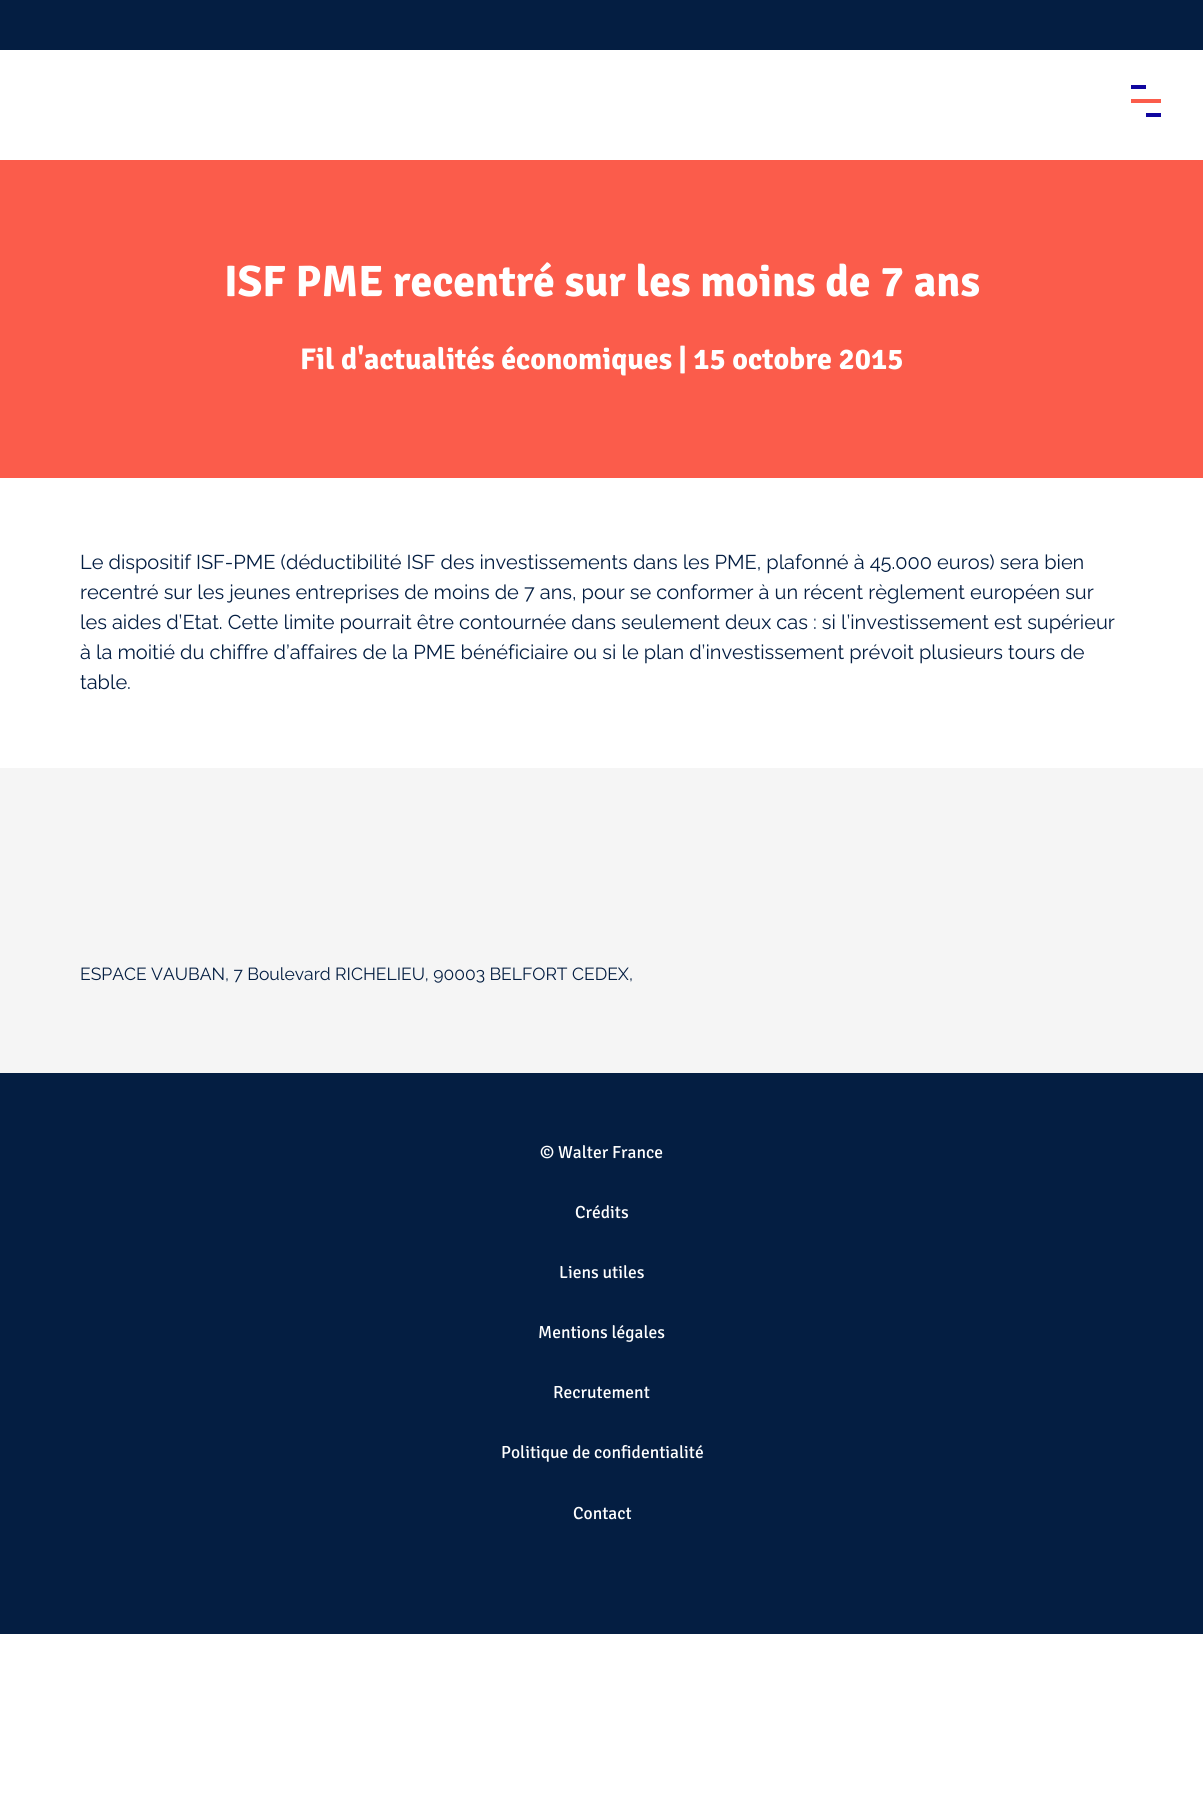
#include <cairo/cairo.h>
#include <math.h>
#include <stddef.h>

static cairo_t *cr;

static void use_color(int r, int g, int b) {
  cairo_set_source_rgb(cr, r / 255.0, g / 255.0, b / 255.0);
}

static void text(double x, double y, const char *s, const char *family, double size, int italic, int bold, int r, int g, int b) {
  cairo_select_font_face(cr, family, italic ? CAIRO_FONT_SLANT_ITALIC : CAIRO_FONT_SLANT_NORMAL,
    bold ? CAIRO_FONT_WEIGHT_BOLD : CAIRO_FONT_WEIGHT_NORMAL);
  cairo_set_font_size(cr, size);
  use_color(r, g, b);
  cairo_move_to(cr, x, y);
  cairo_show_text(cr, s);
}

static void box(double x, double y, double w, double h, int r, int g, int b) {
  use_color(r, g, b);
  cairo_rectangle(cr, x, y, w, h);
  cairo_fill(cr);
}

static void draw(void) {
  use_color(255, 255, 255);
  cairo_paint(cr);
  box(0, 0, 1203, 50, 4, 30, 66);
  box(1131, 85, 15, 4, 16, 6, 159);
  box(1131, 99, 30, 4, 251, 92, 75);
  box(1146, 113, 15, 4, 16, 6, 159);
  box(0, 160, 1203, 318, 251, 92, 75);
  box(0, 768, 1203, 305, 245, 245, 245);
  box(0, 1073, 1203, 561, 4, 30, 66);
  text(224, 296, "ISF PME recentré sur les moins de 7 ans", "Signika", 44, 0, 1, 255, 255, 255);
  text(300, 369, "Fil d'actualités économiques | 15 octobre 2015", "Signika", 30, 0, 1, 255, 255, 255);
  text(80, 569, "Le dispositif ISF-PME (déductibilité ISF des investissements dans les PME, plafonné à 45.000 euros) sera bien", "Raleway", 20, 0, 0, 4, 30, 66);
  text(80, 599, "recentré sur les jeunes entreprises de moins de 7 ans, pour se conformer à un récent règlement européen sur", "Raleway", 20, 0, 0, 4, 30, 66);
  text(80, 629, "les aides d’Etat. Cette limite pourrait être contournée dans seulement deux cas : si l’investissement est supérieur", "Raleway", 20, 0, 0, 4, 30, 66);
  text(80, 659, "à la moitié du chiffre d’affaires de la PME bénéficiaire ou si le plan d’investissement prévoit plusieurs tours de", "Raleway", 20, 0, 0, 4, 30, 66);
  text(80, 689, "table.", "Raleway", 20, 0, 0, 4, 30, 66);
  text(80, 980, "ESPACE VAUBAN, 7 Boulevard RICHELIEU, 90003 BELFORT CEDEX,", "Raleway", 17.5, 0, 0, 4, 30, 66);
  text(540, 1158, "© Walter France", "Signika", 17.5, 0, 0, 255, 255, 255);
  text(575, 1218, "Crédits", "Signika", 17.5, 0, 0, 255, 255, 255);
  text(559, 1278, "Liens utiles", "Signika", 17.5, 0, 0, 255, 255, 255);
  text(538, 1338, "Mentions légales", "Signika", 17.5, 0, 0, 255, 255, 255);
  text(553, 1398, "Recrutement", "Signika", 17.5, 0, 0, 255, 255, 255);
  text(501, 1458, "Politique de confidentialité", "Signika", 17.5, 0, 0, 255, 255, 255);
  text(573, 1519, "Contact", "Signika", 17.5, 0, 0, 255, 255, 255);
}

int main(void) {
  cairo_surface_t *surface = cairo_image_surface_create(CAIRO_FORMAT_RGB24, 1203, 1804);
  cr = cairo_create(surface);
  cairo_font_options_t *options = cairo_font_options_create();
  cairo_font_options_set_hint_metrics(options, CAIRO_HINT_METRICS_OFF);
  cairo_font_options_set_hint_style(options, CAIRO_HINT_STYLE_NONE);
  cairo_set_font_options(cr, options);
  cairo_set_miter_limit(cr, 4);
  draw();
  cairo_surface_write_to_png(surface, "out.png");
  cairo_font_options_destroy(options);
  cairo_destroy(cr);
  cairo_surface_destroy(surface);
  return 0;
}
